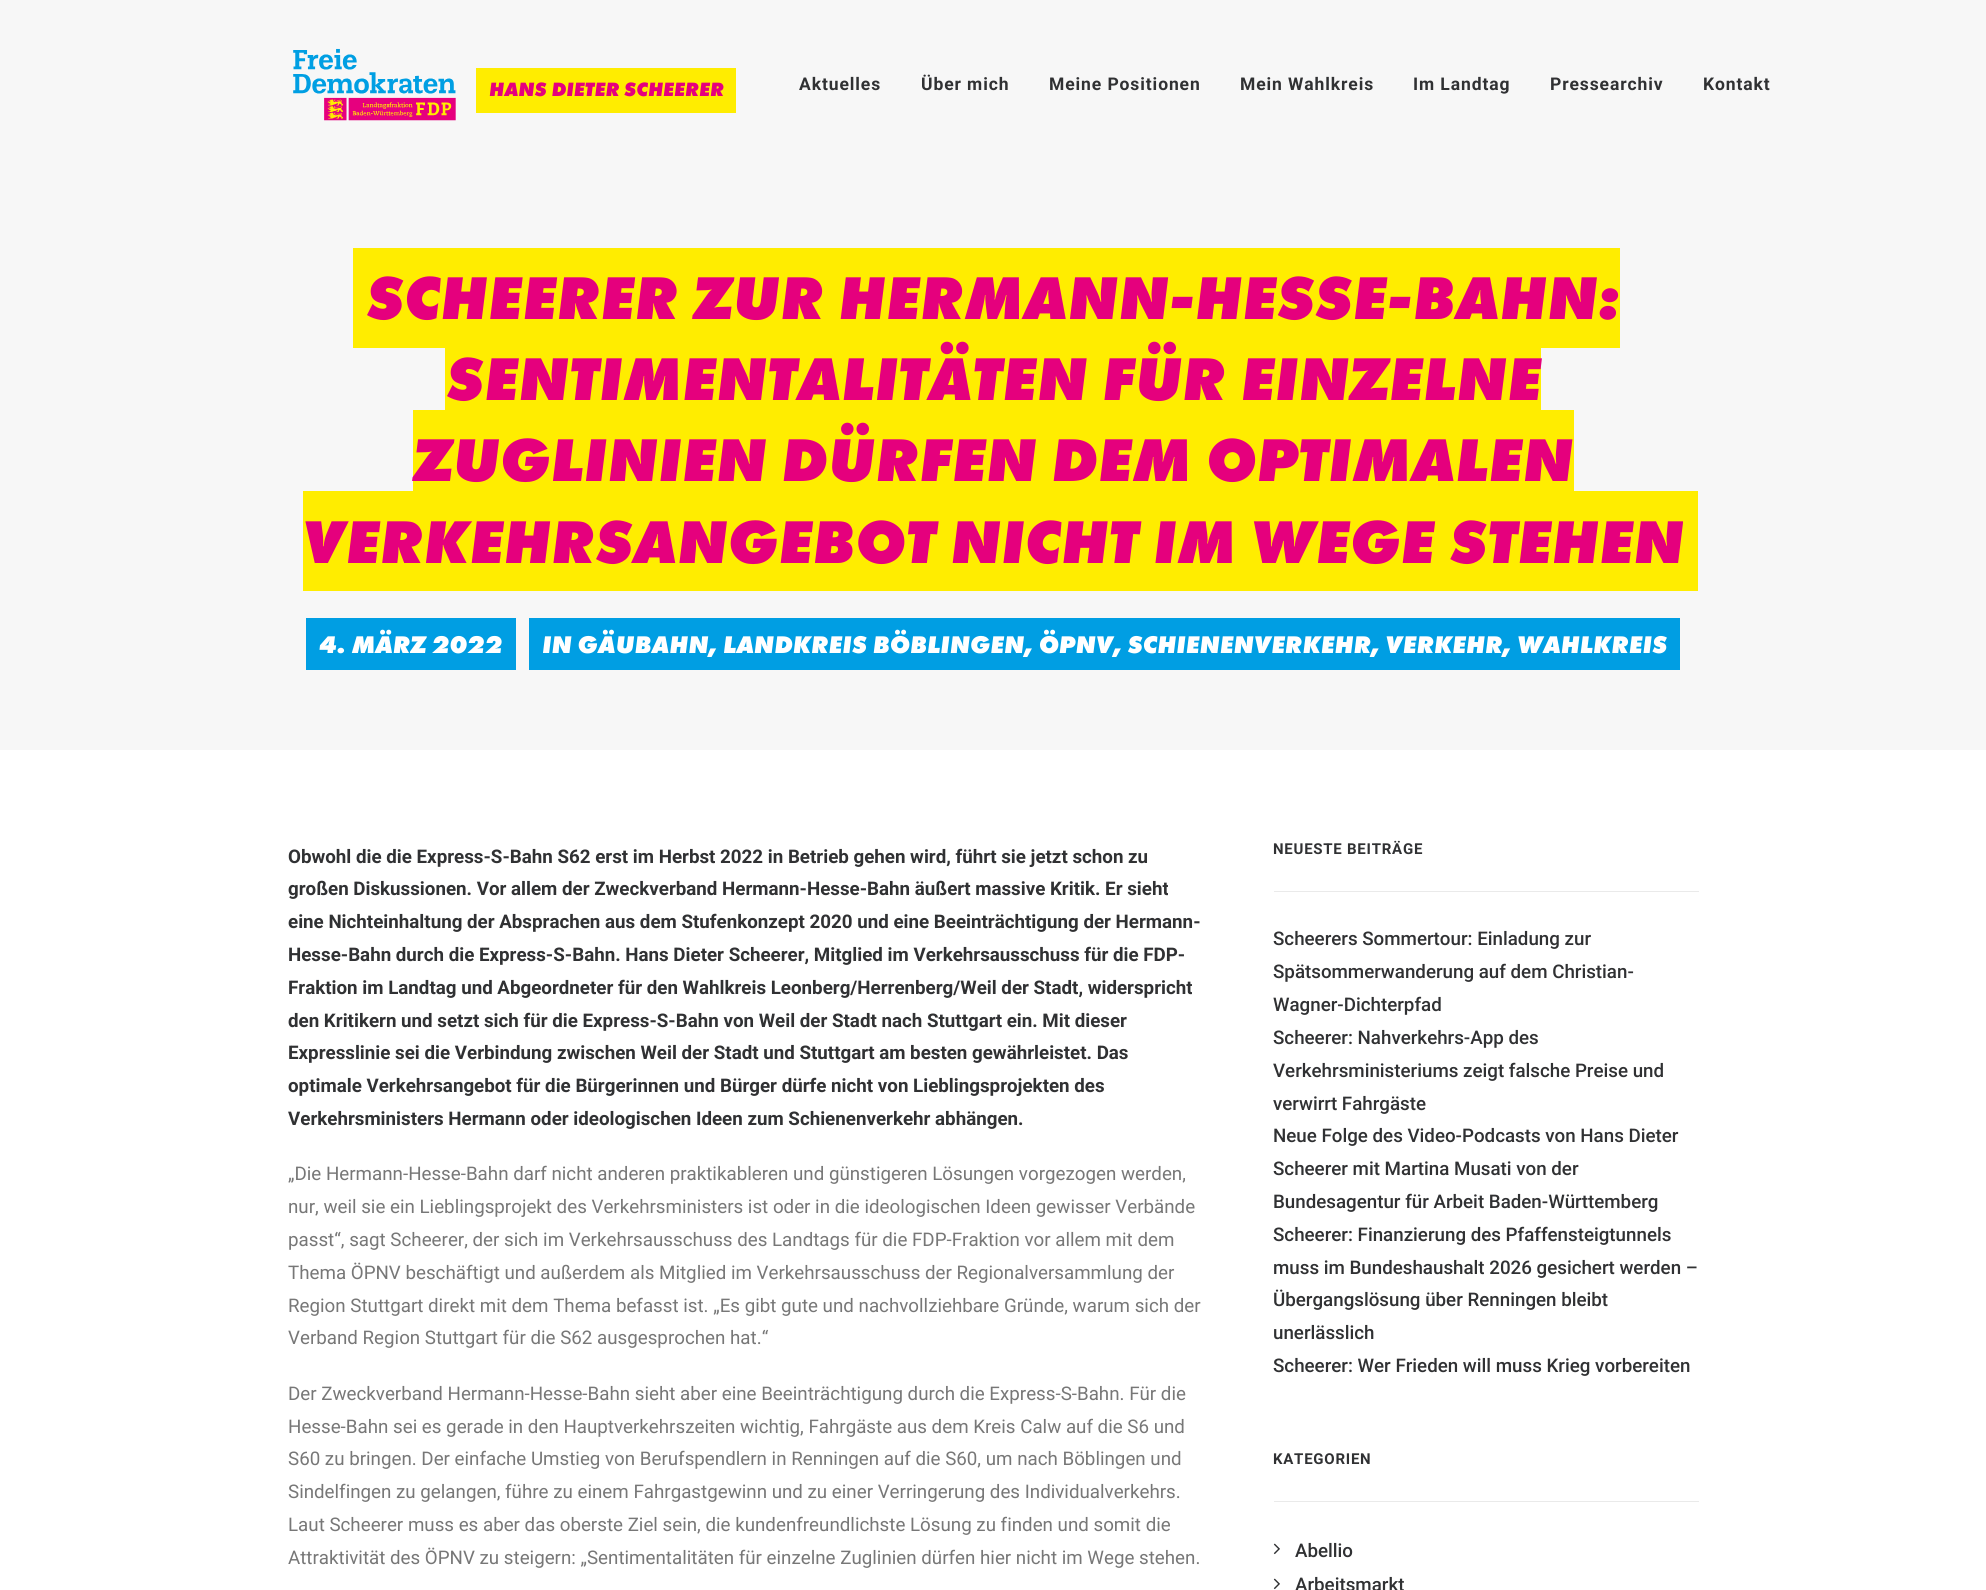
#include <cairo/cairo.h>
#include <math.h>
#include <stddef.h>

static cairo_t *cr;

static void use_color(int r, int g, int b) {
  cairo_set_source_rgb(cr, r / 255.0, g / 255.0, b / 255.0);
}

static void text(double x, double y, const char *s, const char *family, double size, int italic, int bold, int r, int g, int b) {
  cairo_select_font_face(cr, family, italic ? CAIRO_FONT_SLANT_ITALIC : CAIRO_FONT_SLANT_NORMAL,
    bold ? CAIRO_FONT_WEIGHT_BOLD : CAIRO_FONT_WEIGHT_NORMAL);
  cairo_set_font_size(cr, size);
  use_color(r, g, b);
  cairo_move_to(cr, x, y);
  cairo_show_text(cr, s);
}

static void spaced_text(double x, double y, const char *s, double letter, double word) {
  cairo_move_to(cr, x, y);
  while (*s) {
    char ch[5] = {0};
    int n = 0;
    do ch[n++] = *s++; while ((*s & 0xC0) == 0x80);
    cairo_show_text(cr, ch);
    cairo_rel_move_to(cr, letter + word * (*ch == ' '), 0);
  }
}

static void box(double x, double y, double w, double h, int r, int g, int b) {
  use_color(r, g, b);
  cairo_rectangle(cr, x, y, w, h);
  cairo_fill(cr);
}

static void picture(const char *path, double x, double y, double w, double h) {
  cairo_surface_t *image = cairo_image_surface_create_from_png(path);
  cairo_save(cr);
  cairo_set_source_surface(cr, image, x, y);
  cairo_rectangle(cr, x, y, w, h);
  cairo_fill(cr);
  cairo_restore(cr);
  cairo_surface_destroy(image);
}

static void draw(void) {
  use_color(247, 247, 247);
  cairo_paint(cr);
  picture("img_01.png", 293, 48, 163, 73);
  box(476, 68, 260, 45, 255, 237, 0);
  box(353, 248, 1267, 100, 255, 237, 0);
  box(445, 348, 1096, 62, 255, 237, 0);
  box(413, 410, 1161, 81, 255, 237, 0);
  box(303, 491, 1395, 100, 255, 237, 0);
  box(306, 618, 210, 52, 0, 158, 227);
  box(529, 618, 1151, 52, 0, 158, 227);
  box(0, 750, 1986, 840, 255, 255, 255);
  box(1274, 891, 425, 1, 234, 234, 234);
  box(1274, 1501, 425, 1, 234, 234, 234);
  picture("img_02.png", 1273, 1543, 7, 12);
  picture("img_02.png", 1273, 1578, 7, 12);
  text(489, 96, "HANS DIETER SCHEERER", "Futura PT ExtraBold", 20, 1, 0, 229, 0, 125);
  cairo_select_font_face(cr, "Roboto", CAIRO_FONT_SLANT_NORMAL, CAIRO_FONT_WEIGHT_BOLD);
  cairo_set_font_size(cr, 17.5);
  use_color(48, 49, 51);
  spaced_text(799, 90, "Aktuelles", 0.9, 0);
  spaced_text(921, 90, "Über mich", 0.9, 0);
  spaced_text(1049, 90, "Meine Positionen", 0.9, 0);
  spaced_text(1240, 90, "Mein Wahlkreis", 0.9, 0);
  spaced_text(1413, 90, "Im Landtag", 0.9, 0);
  spaced_text(1550, 90, "Pressearchiv", 0.9, 0);
  spaced_text(1703, 90, "Kontakt", 0.9, 0);
  text(366, 319, "SCHEERER ZUR HERMANN-HESSE-BAHN:", "Futura PT ExtraBold", 62.5, 1, 0, 229, 0, 125);
  text(446, 400, "SENTIMENTALITÄTEN FÜR EINZELNE", "Futura PT ExtraBold", 62.5, 1, 0, 229, 0, 125);
  text(413, 481, "ZUGLINIEN DÜRFEN DEM OPTIMALEN", "Futura PT ExtraBold", 62.5, 1, 0, 229, 0, 125);
  text(302, 563, "VERKEHRSANGEBOT NICHT IM WEGE STEHEN", "Futura PT ExtraBold", 62.5, 1, 0, 229, 0, 125);
  text(319, 653, "4. MÄRZ 2022", "Futura PT ExtraBold", 25, 1, 0, 255, 255, 255);
  text(542, 653, "IN GÄUBAHN, LANDKREIS BÖBLINGEN, ÖPNV, SCHIENENVERKEHR, VERKEHR, WAHLKREIS", "Futura PT ExtraBold", 25, 1, 0, 255, 255, 255);
  text(288, 863, "Obwohl die die Express-S-Bahn S62 erst im Herbst 2022 in Betrieb gehen wird, führt sie jetzt schon zu", "Roboto", 18.75, 0, 1, 48, 49, 51);
  text(288, 895, "großen Diskussionen. Vor allem der Zweckverband Hermann-Hesse-Bahn äußert massive Kritik. Er sieht", "Roboto", 18.75, 0, 1, 48, 49, 51);
  text(288, 928, "eine Nichteinhaltung der Absprachen aus dem Stufenkonzept 2020 und eine Beeinträchtigung der Hermann-", "Roboto", 18.75, 0, 1, 48, 49, 51);
  text(288, 961, "Hesse-Bahn durch die Express-S-Bahn. Hans Dieter Scheerer, Mitglied im Verkehrsausschuss für die FDP-", "Roboto", 18.75, 0, 1, 48, 49, 51);
  text(288, 994, "Fraktion im Landtag und Abgeordneter für den Wahlkreis Leonberg/Herrenberg/Weil der Stadt, widerspricht", "Roboto", 18.75, 0, 1, 48, 49, 51);
  text(288, 1027, "den Kritikern und setzt sich für die Express-S-Bahn von Weil der Stadt nach Stuttgart ein. Mit dieser", "Roboto", 18.75, 0, 1, 48, 49, 51);
  text(288, 1059, "Expresslinie sei die Verbindung zwischen Weil der Stadt und Stuttgart am besten gewährleistet. Das", "Roboto", 18.75, 0, 1, 48, 49, 51);
  text(288, 1092, "optimale Verkehrsangebot für die Bürgerinnen und Bürger dürfe nicht von Lieblingsprojekten des", "Roboto", 18.75, 0, 1, 48, 49, 51);
  text(288, 1125, "Verkehrsministers Hermann oder ideologischen Ideen zum Schienenverkehr abhängen.", "Roboto", 18.75, 0, 1, 48, 49, 51);
  text(288, 1180, "„Die Hermann-Hesse-Bahn darf nicht anderen praktikableren und günstigeren Lösungen vorgezogen werden,", "Roboto", 18.75, 0, 0, 119, 119, 119);
  text(288, 1213, "nur, weil sie ein Lieblingsprojekt des Verkehrsministers ist oder in die ideologischen Ideen gewisser Verbände", "Roboto", 18.75, 0, 0, 119, 119, 119);
  text(288, 1246, "passt“, sagt Scheerer, der sich im Verkehrsausschuss des Landtags für die FDP-Fraktion vor allem mit dem", "Roboto", 18.75, 0, 0, 119, 119, 119);
  text(288, 1279, "Thema ÖPNV beschäftigt und außerdem als Mitglied im Verkehrsausschuss der Regionalversammlung der", "Roboto", 18.75, 0, 0, 119, 119, 119);
  text(288, 1312, "Region Stuttgart direkt mit dem Thema befasst ist. „Es gibt gute und nachvollziehbare Gründe, warum sich der", "Roboto", 18.75, 0, 0, 119, 119, 119);
  text(288, 1344, "Verband Region Stuttgart für die S62 ausgesprochen hat.“", "Roboto", 18.75, 0, 0, 119, 119, 119);
  text(288, 1400, "Der Zweckverband Hermann-Hesse-Bahn sieht aber eine Beeinträchtigung durch die Express-S-Bahn. Für die", "Roboto", 18.75, 0, 0, 119, 119, 119);
  text(288, 1433, "Hesse-Bahn sei es gerade in den Hauptverkehrszeiten wichtig, Fahrgäste aus dem Kreis Calw auf die S6 und", "Roboto", 18.75, 0, 0, 119, 119, 119);
  text(288, 1465, "S60 zu bringen. Der einfache Umstieg von Berufspendlern in Renningen auf die S60, um nach Böblingen und", "Roboto", 18.75, 0, 0, 119, 119, 119);
  text(288, 1498, "Sindelfingen zu gelangen, führe zu einem Fahrgastgewinn und zu einer Verringerung des Individualverkehrs.", "Roboto", 18.75, 0, 0, 119, 119, 119);
  text(288, 1531, "Laut Scheerer muss es aber das oberste Ziel sein, die kundenfreundlichste Lösung zu finden und somit die", "Roboto", 18.75, 0, 0, 119, 119, 119);
  text(288, 1564, "Attraktivität des ÖPNV zu steigern: „Sentimentalitäten für einzelne Zuglinien dürfen hier nicht im Wege stehen.", "Roboto", 18.75, 0, 0, 119, 119, 119);
  cairo_select_font_face(cr, "Roboto", CAIRO_FONT_SLANT_NORMAL, CAIRO_FONT_WEIGHT_BOLD);
  cairo_set_font_size(cr, 15);
  use_color(48, 49, 51);
  spaced_text(1273, 854, "NEUESTE BEITRÄGE", 0.75, 0);
  text(1273, 945, "Scheerers Sommertour: Einladung zur", "Roboto Medium", 18.75, 0, 0, 48, 49, 51);
  text(1273, 978, "Spätsommerwanderung auf dem Christian-", "Roboto Medium", 18.75, 0, 0, 48, 49, 51);
  text(1273, 1011, "Wagner-Dichterpfad", "Roboto Medium", 18.75, 0, 0, 48, 49, 51);
  text(1273, 1044, "Scheerer: Nahverkehrs-App des", "Roboto Medium", 18.75, 0, 0, 48, 49, 51);
  text(1273, 1077, "Verkehrsministeriums zeigt falsche Preise und", "Roboto Medium", 18.75, 0, 0, 48, 49, 51);
  text(1273, 1110, "verwirrt Fahrgäste", "Roboto Medium", 18.75, 0, 0, 48, 49, 51);
  text(1273, 1142, "Neue Folge des Video-Podcasts von Hans Dieter", "Roboto Medium", 18.75, 0, 0, 48, 49, 51);
  text(1273, 1175, "Scheerer mit Martina Musati von der", "Roboto Medium", 18.75, 0, 0, 48, 49, 51);
  text(1273, 1208, "Bundesagentur für Arbeit Baden-Württemberg", "Roboto Medium", 18.75, 0, 0, 48, 49, 51);
  text(1273, 1241, "Scheerer: Finanzierung des Pfaffensteigtunnels", "Roboto Medium", 18.75, 0, 0, 48, 49, 51);
  text(1273, 1274, "muss im Bundeshaushalt 2026 gesichert werden –", "Roboto Medium", 18.75, 0, 0, 48, 49, 51);
  text(1273, 1306, "Übergangslösung über Renningen bleibt", "Roboto Medium", 18.75, 0, 0, 48, 49, 51);
  text(1273, 1339, "unerlässlich", "Roboto Medium", 18.75, 0, 0, 48, 49, 51);
  text(1273, 1372, "Scheerer: Wer Frieden will muss Krieg vorbereiten", "Roboto Medium", 18.75, 0, 0, 48, 49, 51);
  cairo_select_font_face(cr, "Roboto", CAIRO_FONT_SLANT_NORMAL, CAIRO_FONT_WEIGHT_BOLD);
  cairo_set_font_size(cr, 15);
  spaced_text(1273, 1464, "KATEGORIEN", 0.75, 0);
  text(1295, 1557, "Abellio", "Roboto Medium", 18.75, 0, 0, 48, 49, 51);
  text(1295, 1591, "Arbeitsmarkt", "Roboto Medium", 18.75, 0, 0, 48, 49, 51);
}

int main(void) {
  cairo_surface_t *surface = cairo_image_surface_create(CAIRO_FORMAT_RGB24, 1986, 1590);
  cr = cairo_create(surface);
  cairo_font_options_t *options = cairo_font_options_create();
  cairo_font_options_set_hint_metrics(options, CAIRO_HINT_METRICS_OFF);
  cairo_font_options_set_hint_style(options, CAIRO_HINT_STYLE_NONE);
  cairo_set_font_options(cr, options);
  cairo_set_miter_limit(cr, 4);
  draw();
  cairo_surface_write_to_png(surface, "out.png");
  cairo_font_options_destroy(options);
  cairo_destroy(cr);
  cairo_surface_destroy(surface);
  return 0;
}
